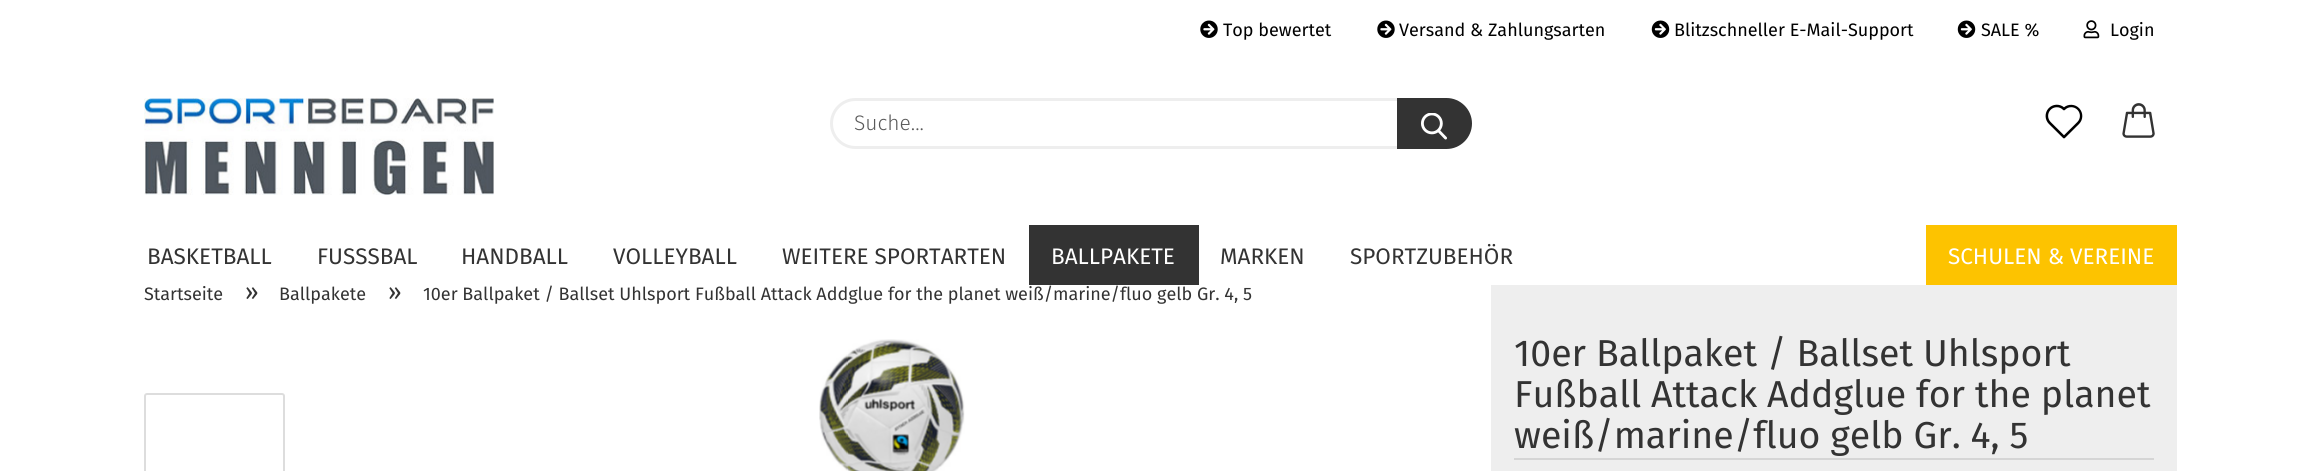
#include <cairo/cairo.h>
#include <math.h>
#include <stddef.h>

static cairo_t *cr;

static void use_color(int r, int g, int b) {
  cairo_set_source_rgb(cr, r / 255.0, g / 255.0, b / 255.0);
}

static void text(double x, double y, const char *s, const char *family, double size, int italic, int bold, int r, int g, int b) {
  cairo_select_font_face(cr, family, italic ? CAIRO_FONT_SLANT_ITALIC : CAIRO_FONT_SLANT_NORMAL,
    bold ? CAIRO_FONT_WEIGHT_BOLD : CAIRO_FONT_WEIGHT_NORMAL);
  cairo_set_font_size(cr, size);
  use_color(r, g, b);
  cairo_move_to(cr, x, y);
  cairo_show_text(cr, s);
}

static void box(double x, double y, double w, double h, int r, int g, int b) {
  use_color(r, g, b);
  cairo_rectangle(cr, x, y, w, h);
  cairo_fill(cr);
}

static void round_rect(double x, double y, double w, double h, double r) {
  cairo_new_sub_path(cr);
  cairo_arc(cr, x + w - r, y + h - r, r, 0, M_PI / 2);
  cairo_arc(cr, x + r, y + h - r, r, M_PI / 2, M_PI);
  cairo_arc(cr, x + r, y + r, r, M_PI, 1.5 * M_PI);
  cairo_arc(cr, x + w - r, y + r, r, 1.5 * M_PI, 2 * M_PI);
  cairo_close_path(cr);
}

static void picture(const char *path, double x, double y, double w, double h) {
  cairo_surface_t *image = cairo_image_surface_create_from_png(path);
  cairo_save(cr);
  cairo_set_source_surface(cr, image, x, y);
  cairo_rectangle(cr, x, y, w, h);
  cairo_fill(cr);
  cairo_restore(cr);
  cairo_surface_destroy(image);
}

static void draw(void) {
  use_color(255, 255, 255);
  cairo_paint(cr);
  picture("img_01.png", 1200, 20, 18, 18);
  picture("img_01.png", 1377, 20, 18, 18);
  picture("img_02.png", 1651, 20, 19, 18);
  picture("img_02.png", 1957, 20, 19, 18);
  picture("img_03.png", 2083, 20, 17, 19);
  picture("img_04.png", 144, 98, 350, 97);
  round_rect(831.5, 99.5, 636, 48, 24);
  use_color(238, 238, 238);
  cairo_set_line_width(cr, 3);
  cairo_stroke(cr);
  use_color(51, 51, 51);
  cairo_new_path(cr);
  cairo_move_to(cr, 1397, 98);
  cairo_line_to(cr, 1446.5, 98);
  cairo_curve_to(cr, 1460.5, 98, 1472, 109.5, 1472, 123.5);
  cairo_curve_to(cr, 1472, 137.5, 1460.5, 149, 1446.5, 149);
  cairo_line_to(cr, 1397, 149);
  cairo_close_path(cr);
  cairo_fill(cr);
  picture("img_05.png", 1421, 113, 26, 27);
  picture("img_06.png", 2045, 104, 38, 35);
  picture("img_07.png", 2122, 103, 33, 35);
  box(1029, 225, 170, 60, 51, 51, 51);
  box(1926, 225, 251, 60, 253, 195, 0);
  round_rect(145, 394, 139, 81, 2);
  use_color(221, 221, 221);
  cairo_set_line_width(cr, 2);
  cairo_stroke(cr);
  picture("img_08.png", 819, 339, 146, 132);
  box(1491, 285, 686, 186, 238, 238, 238);
  box(1514, 458, 640, 2, 213, 213, 213);
  text(1223, 36, "Top bewertet", "Fira Sans", 18, 0, 0, 0, 0, 0);
  text(1399, 36, "Versand & Zahlungsarten", "Fira Sans", 18, 0, 0, 0, 0, 0);
  text(1674, 36, "Blitzschneller E-Mail-Support", "Fira Sans", 18, 0, 0, 0, 0, 0);
  text(1981, 36, "SALE %", "Fira Sans", 18, 0, 0, 0, 0, 0);
  text(2110, 36, "Login", "Fira Sans", 18, 0, 0, 0, 0, 0);
  text(854, 130, "Suche...", "Fira Sans Light", 21, 0, 0, 89, 89, 89);
  text(147, 264, "BASKETBALL", "Fira Sans", 22.5, 0, 0, 51, 51, 51);
  text(317, 264, "FUSSSBAL", "Fira Sans", 22.5, 0, 0, 51, 51, 51);
  text(461, 264, "HANDBALL", "Fira Sans", 22.5, 0, 0, 51, 51, 51);
  text(613, 264, "VOLLEYBALL", "Fira Sans", 22.5, 0, 0, 51, 51, 51);
  text(782, 264, "WEITERE SPORTARTEN", "Fira Sans", 22.5, 0, 0, 51, 51, 51);
  text(1051, 264, "BALLPAKETE", "Fira Sans", 22.5, 0, 0, 255, 255, 255);
  text(1220, 264, "MARKEN", "Fira Sans", 22.5, 0, 0, 51, 51, 51);
  text(1350, 264, "SPORTZUBEHÖR", "Fira Sans", 22.5, 0, 0, 51, 51, 51);
  text(1948, 264, "SCHULEN & VEREINE", "Fira Sans", 22.5, 0, 0, 255, 255, 255);
  text(144, 300, "Startseite", "Fira Sans", 18, 0, 0, 51, 51, 51);
  text(245, 300, "»", "Fira Sans", 24, 0, 0, 51, 51, 51);
  text(279, 300, "Ballpakete", "Fira Sans", 18, 0, 0, 51, 51, 51);
  text(388, 300, "»", "Fira Sans", 24, 0, 0, 51, 51, 51);
  text(423, 300, "10er Ballpaket / Ballset Uhlsport Fußball Attack Addglue for the planet weiß/marine/fluo gelb Gr. 4, 5", "Fira Sans", 18, 0, 0, 51, 51, 51);
  text(1514, 366, "10er Ballpaket / Ballset Uhlsport", "Fira Sans", 37.5, 0, 0, 51, 51, 51);
  text(1514, 407, "Fußball Attack Addglue for the planet", "Fira Sans", 37.5, 0, 0, 51, 51, 51);
  text(1514, 448, "weiß/marine/fluo gelb Gr. 4, 5", "Fira Sans", 37.5, 0, 0, 51, 51, 51);
}

int main(void) {
  cairo_surface_t *surface = cairo_image_surface_create(CAIRO_FORMAT_RGB24, 2298, 471);
  cr = cairo_create(surface);
  cairo_font_options_t *options = cairo_font_options_create();
  cairo_font_options_set_hint_metrics(options, CAIRO_HINT_METRICS_OFF);
  cairo_font_options_set_hint_style(options, CAIRO_HINT_STYLE_NONE);
  cairo_set_font_options(cr, options);
  cairo_set_miter_limit(cr, 4);
  draw();
  cairo_surface_write_to_png(surface, "out.png");
  cairo_font_options_destroy(options);
  cairo_destroy(cr);
  cairo_surface_destroy(surface);
  return 0;
}
